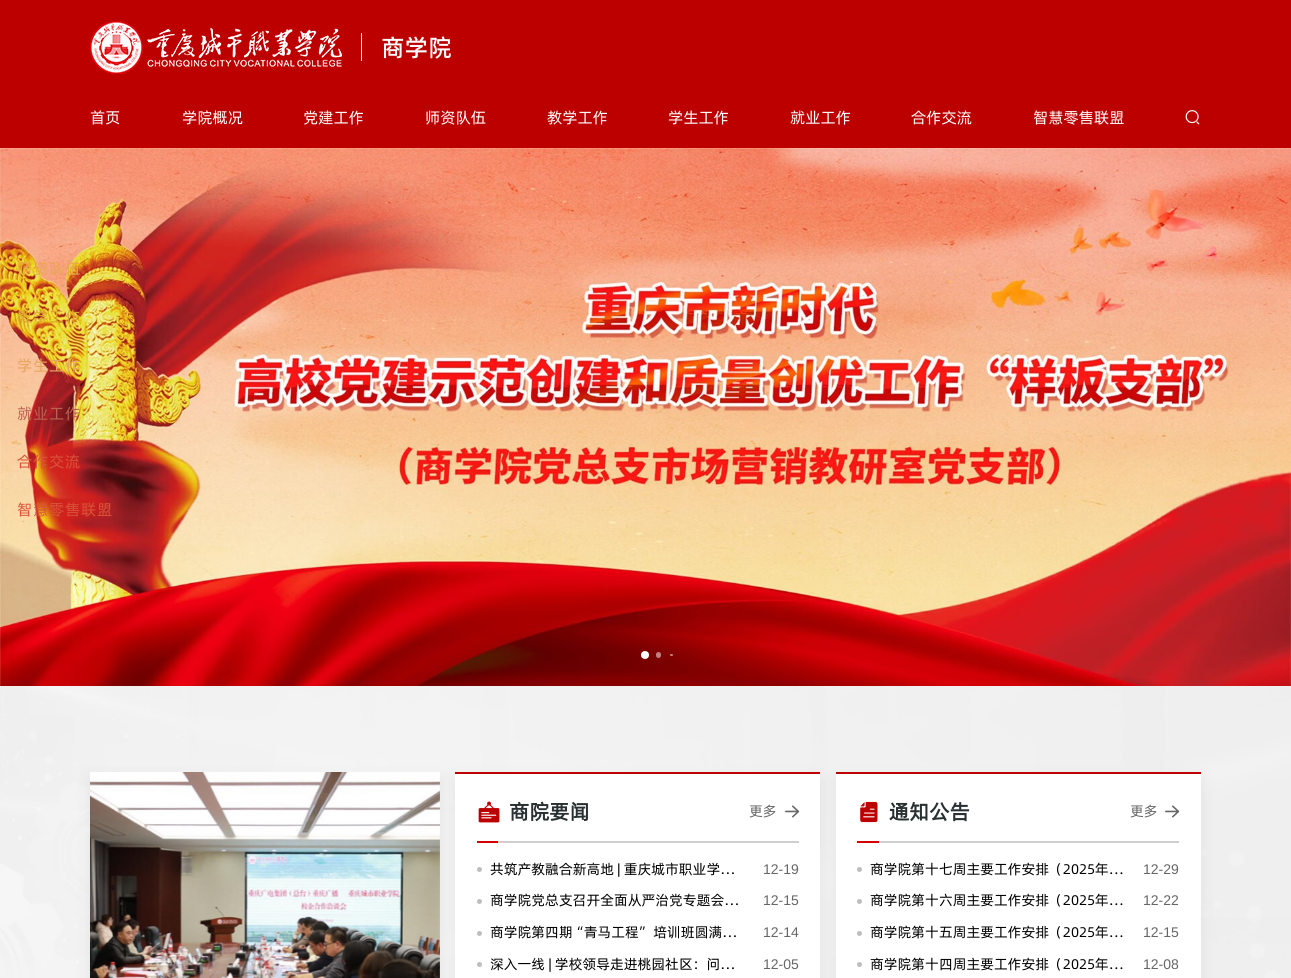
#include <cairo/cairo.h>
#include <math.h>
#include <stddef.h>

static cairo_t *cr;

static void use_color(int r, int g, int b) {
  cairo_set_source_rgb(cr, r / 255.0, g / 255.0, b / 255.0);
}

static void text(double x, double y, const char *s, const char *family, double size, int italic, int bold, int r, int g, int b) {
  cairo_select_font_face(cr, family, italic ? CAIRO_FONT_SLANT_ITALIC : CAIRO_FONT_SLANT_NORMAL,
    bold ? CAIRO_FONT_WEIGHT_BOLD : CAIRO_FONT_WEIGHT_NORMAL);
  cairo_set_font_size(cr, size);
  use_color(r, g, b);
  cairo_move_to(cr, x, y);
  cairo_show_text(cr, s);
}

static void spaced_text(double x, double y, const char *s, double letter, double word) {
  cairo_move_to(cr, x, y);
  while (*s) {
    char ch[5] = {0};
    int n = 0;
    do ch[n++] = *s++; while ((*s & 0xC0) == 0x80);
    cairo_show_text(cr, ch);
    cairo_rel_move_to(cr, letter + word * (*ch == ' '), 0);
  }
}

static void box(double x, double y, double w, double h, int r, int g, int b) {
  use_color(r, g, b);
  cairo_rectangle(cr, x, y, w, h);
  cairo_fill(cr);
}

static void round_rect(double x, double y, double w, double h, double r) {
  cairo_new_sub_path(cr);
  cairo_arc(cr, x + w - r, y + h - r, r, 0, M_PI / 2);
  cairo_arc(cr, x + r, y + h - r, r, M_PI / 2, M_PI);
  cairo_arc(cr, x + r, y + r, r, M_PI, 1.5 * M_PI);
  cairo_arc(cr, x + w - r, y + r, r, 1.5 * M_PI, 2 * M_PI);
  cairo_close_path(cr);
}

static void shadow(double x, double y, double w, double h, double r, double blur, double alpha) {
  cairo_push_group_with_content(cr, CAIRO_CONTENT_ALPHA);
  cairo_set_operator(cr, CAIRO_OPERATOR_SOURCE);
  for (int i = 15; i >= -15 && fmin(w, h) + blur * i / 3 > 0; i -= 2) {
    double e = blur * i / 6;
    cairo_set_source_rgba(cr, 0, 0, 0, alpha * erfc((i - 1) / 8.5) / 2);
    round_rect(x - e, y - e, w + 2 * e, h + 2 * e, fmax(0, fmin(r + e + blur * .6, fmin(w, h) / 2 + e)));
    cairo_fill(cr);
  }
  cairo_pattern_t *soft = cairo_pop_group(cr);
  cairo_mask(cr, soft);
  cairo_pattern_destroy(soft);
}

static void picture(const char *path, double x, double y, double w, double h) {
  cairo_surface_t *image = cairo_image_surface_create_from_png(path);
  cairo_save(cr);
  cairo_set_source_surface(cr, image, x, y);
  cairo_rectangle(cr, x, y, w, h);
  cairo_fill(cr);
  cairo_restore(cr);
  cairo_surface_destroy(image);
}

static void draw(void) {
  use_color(255, 255, 255);
  cairo_paint(cr);
  box(0, 0, 1291, 148, 188, 0, 0);
  picture("img_01.png", 90, 21, 252, 53);
  box(361, 33, 1, 28, 255, 255, 255);
  picture("img_02.png", 1185, 110, 15, 15);
  picture("img_03.png", 0, 148, 1291, 538);
  cairo_arc(cr, 645, 655, 4, 0, 2 * M_PI);
  cairo_fill(cr);
  cairo_set_source_rgba(cr, 1, 1, 1, 0.5);
  round_rect(656, 652, 5, 6, 2.5);
  cairo_fill(cr);
  use_color(192, 128, 128);
  round_rect(670, 654, 3, 2, 1);
  cairo_fill(cr);
  picture("img_04.png", 0, 686, 1291, 292);
  use_color(190, 190, 190);
  shadow(90, 779, 350, 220, 0, 7, 0.31);
  picture("img_05.png", 90, 772, 350, 206);
  shadow(455, 779, 365, 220, 0, 7, 0.31);
  box(455, 774, 365, 204, 255, 255, 255);
  box(455, 772, 365, 2, 188, 0, 0);
  box(498, 841, 301, 2, 207, 207, 207);
  picture("img_06.png", 478, 801, 22, 22);
  picture("img_07.png", 785, 805, 15, 13);
  box(477, 841, 21, 2, 214, 0, 0);
  use_color(190, 190, 190);
  cairo_arc(cr, 479.5, 869.5, 2.5, 0, 2 * M_PI);
  cairo_fill(cr);
  cairo_arc(cr, 479.5, 901.5, 2.5, 0, 2 * M_PI);
  cairo_fill(cr);
  cairo_arc(cr, 479.5, 933.5, 2.5, 0, 2 * M_PI);
  cairo_fill(cr);
  cairo_arc(cr, 479.5, 964.5, 2.5, 0, 2 * M_PI);
  cairo_fill(cr);
  use_color(190, 190, 190);
  shadow(836, 779, 365, 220, 0, 7, 0.31);
  box(836, 774, 365, 204, 255, 255, 255);
  box(836, 772, 365, 2, 188, 0, 0);
  box(879, 841, 300, 2, 207, 207, 207);
  picture("img_08.png", 860, 801, 18, 22);
  picture("img_07.png", 1165, 805, 15, 13);
  box(857, 841, 22, 2, 214, 0, 0);
  use_color(190, 190, 190);
  cairo_arc(cr, 859.5, 869.5, 2.5, 0, 2 * M_PI);
  cairo_fill(cr);
  cairo_arc(cr, 859.5, 901.5, 2.5, 0, 2 * M_PI);
  cairo_fill(cr);
  cairo_arc(cr, 859.5, 933.5, 2.5, 0, 2 * M_PI);
  cairo_fill(cr);
  cairo_arc(cr, 859.5, 964.5, 2.5, 0, 2 * M_PI);
  cairo_fill(cr);
  text(381, 56, "商学院", "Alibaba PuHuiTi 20 Medium", 24, 0, 0, 255, 255, 255);
  text(90, 123, "首页", "Alibaba PuHuiTi 20", 15.5, 0, 0, 255, 255, 255);
  text(182, 123, "学院概况", "Alibaba PuHuiTi 20", 15.5, 0, 0, 255, 255, 255);
  text(303, 123, "党建工作", "Alibaba PuHuiTi 20", 15.5, 0, 0, 255, 255, 255);
  text(425, 123, "师资队伍", "Alibaba PuHuiTi 20", 15.5, 0, 0, 255, 255, 255);
  text(547, 123, "教学工作", "Alibaba PuHuiTi 20", 15.5, 0, 0, 255, 255, 255);
  text(668, 123, "学生工作", "Alibaba PuHuiTi 20", 15.5, 0, 0, 255, 255, 255);
  text(790, 123, "就业工作", "Alibaba PuHuiTi 20", 15.5, 0, 0, 255, 255, 255);
  text(911, 123, "合作交流", "Alibaba PuHuiTi 20", 15.5, 0, 0, 255, 255, 255);
  text(1033, 123, "智慧零售联盟", "Alibaba PuHuiTi 20", 15.5, 0, 0, 255, 255, 255);
  use_color(235, 166, 79);
  spaced_text(17, 274, "师资队伍", 0.75, 0);
  use_color(220, 165, 46);
  spaced_text(17, 322, "教学工作", 0.75, 0);
  use_color(229, 166, 95);
  spaced_text(17, 371, "学生工作", 0.75, 0);
  use_color(186, 98, 79);
  spaced_text(17, 419, "就业工作", 0.75, 0);
  use_color(216, 83, 57);
  spaced_text(17, 467, "合作交流", 0.75, 0);
  spaced_text(17, 515, "智慧零售联盟", 0.75, 0);
  text(509, 819, "商院要闻", "Alibaba PuHuiTi 20", 20.5, 0, 1, 40, 48, 50);
  text(749, 816, "更多", "Alibaba PuHuiTi 20", 14, 0, 0, 102, 102, 102);
  text(490, 874, "共筑产教融合新高地 | 重庆城市职业学…", "Alibaba PuHuiTi 20", 14, 0, 0, 0, 0, 0);
  text(763, 874, "12-19", "Liberation Sans", 14, 0, 0, 102, 102, 102);
  text(490, 905, "商学院党总支召开全面从严治党专题会…", "Alibaba PuHuiTi 20", 14, 0, 0, 0, 0, 0);
  text(763, 905, "12-15", "Liberation Sans", 14, 0, 0, 102, 102, 102);
  text(490, 937, "商学院第四期“青马工程” 培训班圆满…", "Alibaba PuHuiTi 20", 14, 0, 0, 0, 0, 0);
  text(763, 937, "12-14", "Liberation Sans", 14, 0, 0, 102, 102, 102);
  text(490, 969, "深入一线 | 学校领导走进桃园社区：问…", "Alibaba PuHuiTi 20", 14, 0, 0, 0, 0, 0);
  text(763, 969, "12-05", "Liberation Sans", 14, 0, 0, 102, 102, 102);
  text(889, 819, "通知公告", "Alibaba PuHuiTi 20", 20.5, 0, 1, 40, 48, 50);
  text(1130, 816, "更多", "Alibaba PuHuiTi 20", 14, 0, 0, 102, 102, 102);
  text(870, 874, "商学院第十七周主要工作安排（2025年…", "Alibaba PuHuiTi 20", 14, 0, 0, 0, 0, 0);
  text(1143, 874, "12-29", "Liberation Sans", 14, 0, 0, 102, 102, 102);
  text(870, 905, "商学院第十六周主要工作安排（2025年…", "Alibaba PuHuiTi 20", 14, 0, 0, 0, 0, 0);
  text(1143, 905, "12-22", "Liberation Sans", 14, 0, 0, 102, 102, 102);
  text(870, 937, "商学院第十五周主要工作安排（2025年…", "Alibaba PuHuiTi 20", 14, 0, 0, 0, 0, 0);
  text(1143, 937, "12-15", "Liberation Sans", 14, 0, 0, 102, 102, 102);
  text(870, 969, "商学院第十四周主要工作安排（2025年…", "Alibaba PuHuiTi 20", 14, 0, 0, 0, 0, 0);
  text(1143, 969, "12-08", "Liberation Sans", 14, 0, 0, 102, 102, 102);
}

int main(void) {
  cairo_surface_t *surface = cairo_image_surface_create(CAIRO_FORMAT_RGB24, 1291, 978);
  cr = cairo_create(surface);
  cairo_font_options_t *options = cairo_font_options_create();
  cairo_font_options_set_hint_metrics(options, CAIRO_HINT_METRICS_OFF);
  cairo_font_options_set_hint_style(options, CAIRO_HINT_STYLE_NONE);
  cairo_set_font_options(cr, options);
  cairo_set_miter_limit(cr, 4);
  draw();
  cairo_surface_write_to_png(surface, "out.png");
  cairo_font_options_destroy(options);
  cairo_destroy(cr);
  cairo_surface_destroy(surface);
  return 0;
}
